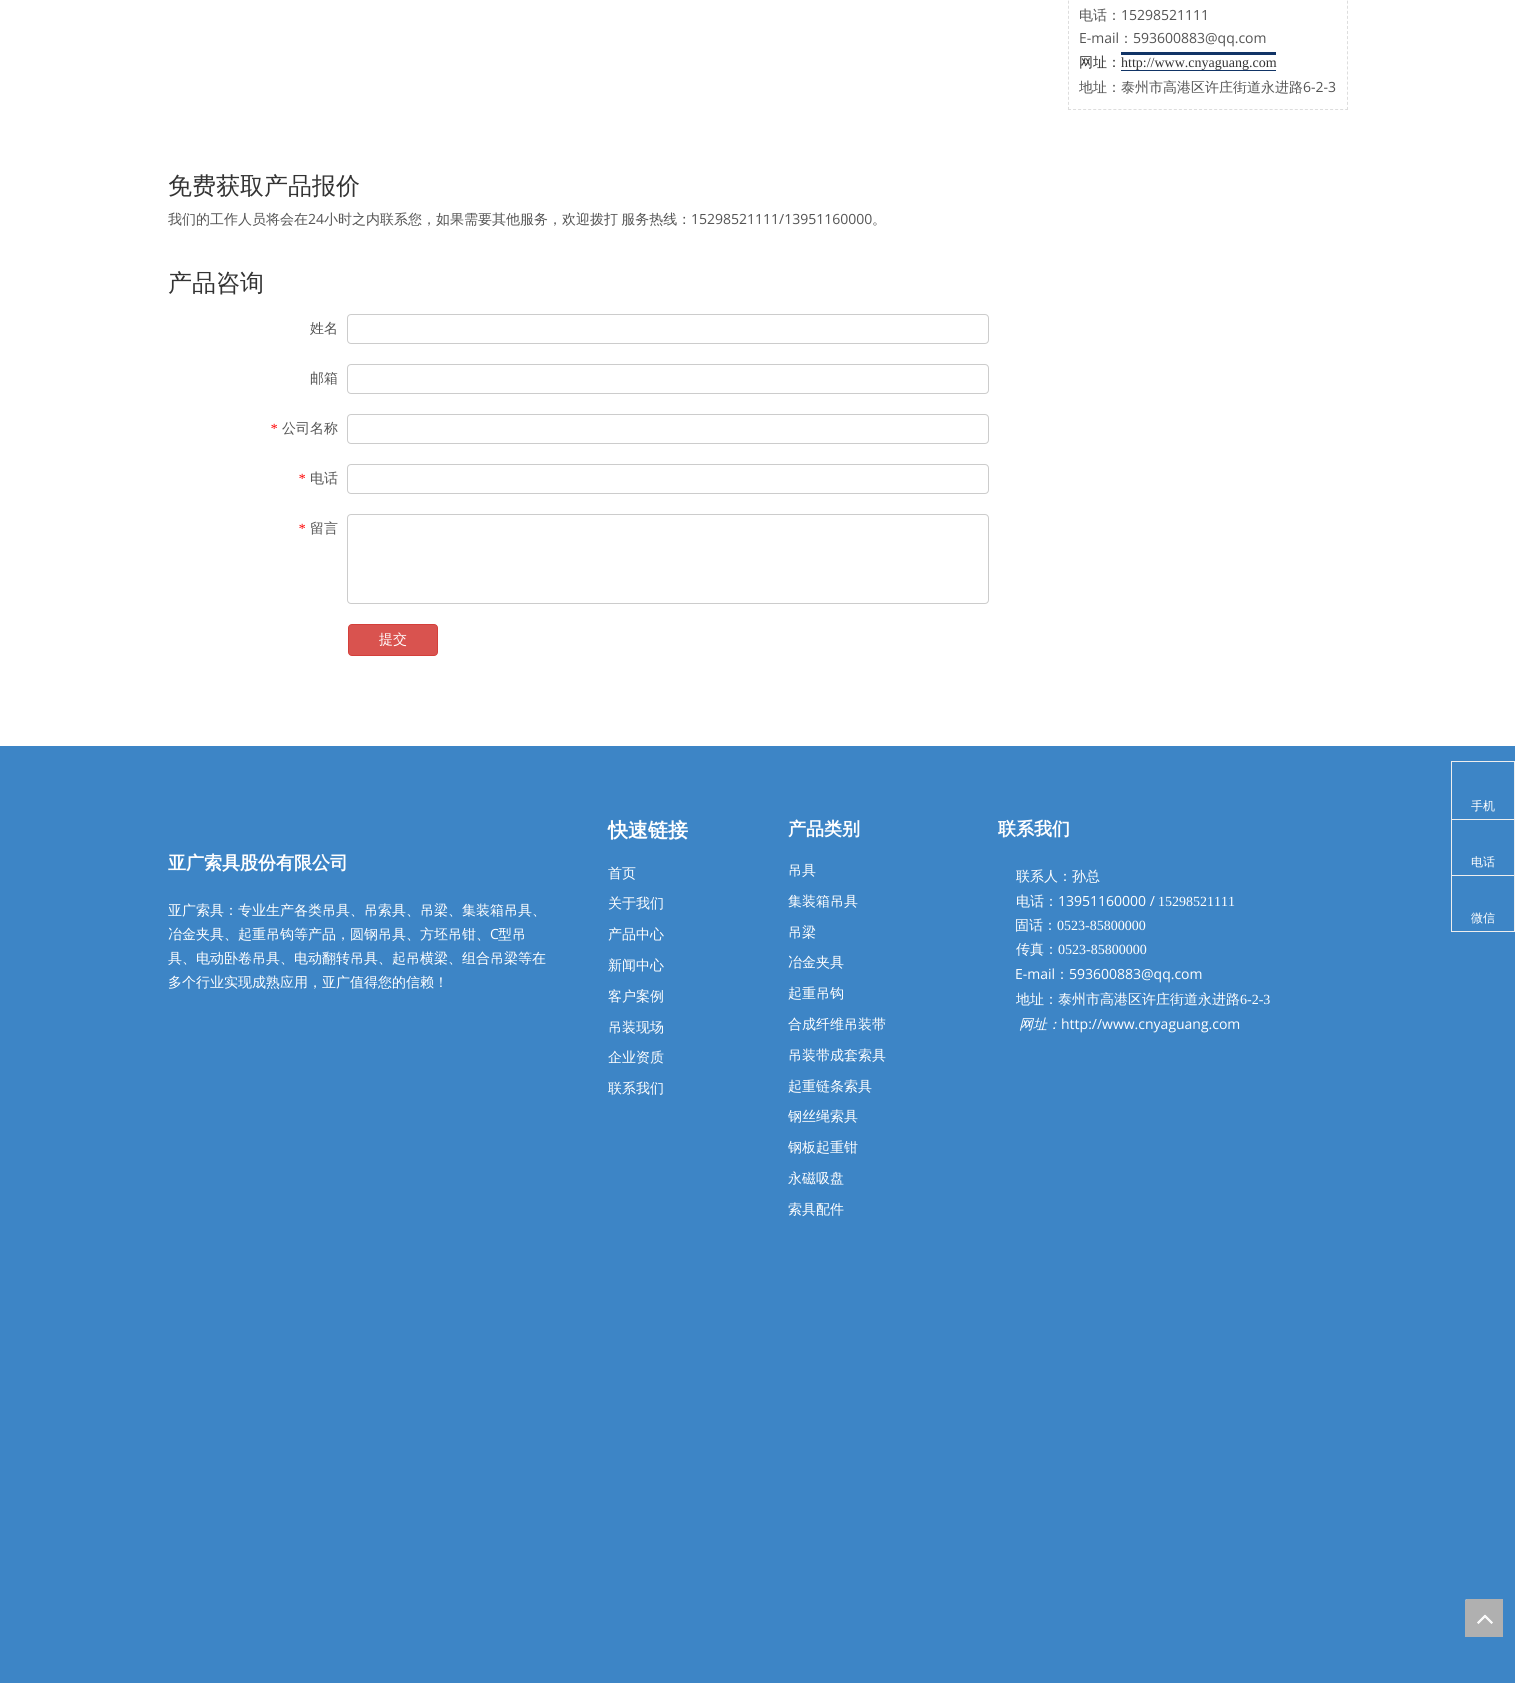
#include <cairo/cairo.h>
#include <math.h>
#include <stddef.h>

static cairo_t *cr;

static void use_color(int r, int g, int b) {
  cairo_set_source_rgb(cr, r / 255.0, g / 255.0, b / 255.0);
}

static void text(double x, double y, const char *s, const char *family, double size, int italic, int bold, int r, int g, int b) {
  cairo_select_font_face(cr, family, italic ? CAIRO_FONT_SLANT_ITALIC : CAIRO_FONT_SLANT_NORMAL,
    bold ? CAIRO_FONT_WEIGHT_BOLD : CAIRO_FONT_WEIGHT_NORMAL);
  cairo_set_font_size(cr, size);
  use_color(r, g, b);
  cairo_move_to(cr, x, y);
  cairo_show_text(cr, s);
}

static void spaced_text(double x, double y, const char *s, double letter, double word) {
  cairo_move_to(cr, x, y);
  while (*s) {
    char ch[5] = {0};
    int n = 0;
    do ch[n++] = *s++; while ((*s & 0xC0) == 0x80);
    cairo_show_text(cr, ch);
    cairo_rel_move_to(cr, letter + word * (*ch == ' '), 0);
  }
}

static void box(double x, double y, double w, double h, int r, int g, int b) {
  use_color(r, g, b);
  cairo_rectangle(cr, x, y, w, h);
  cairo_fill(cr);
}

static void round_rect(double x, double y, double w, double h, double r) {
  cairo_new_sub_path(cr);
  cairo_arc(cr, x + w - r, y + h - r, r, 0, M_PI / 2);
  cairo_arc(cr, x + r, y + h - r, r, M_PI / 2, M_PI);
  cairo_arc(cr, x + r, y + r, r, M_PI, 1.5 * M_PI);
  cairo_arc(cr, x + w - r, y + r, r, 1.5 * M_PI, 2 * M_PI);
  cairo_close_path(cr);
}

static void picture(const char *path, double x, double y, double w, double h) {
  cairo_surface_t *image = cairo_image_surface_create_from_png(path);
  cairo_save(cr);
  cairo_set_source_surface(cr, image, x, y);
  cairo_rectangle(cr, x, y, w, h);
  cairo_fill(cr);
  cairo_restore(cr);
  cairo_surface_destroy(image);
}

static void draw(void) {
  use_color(255, 255, 255);
  cairo_paint(cr);
  cairo_new_path(cr);
  cairo_move_to(cr, 1347.5, -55);
  cairo_line_to(cr, 1347.5, 110);
  use_color(221, 221, 221);
  cairo_set_line_width(cr, 1);
  cairo_set_dash(cr, (double[]){3, 2.06}, 2, 0);
  cairo_stroke(cr);
  cairo_new_path(cr);
  cairo_move_to(cr, 1068, 109.5);
  cairo_line_to(cr, 1348, 109.5);
  cairo_set_dash(cr, (double[]){3, 2.04}, 2, 0);
  cairo_stroke(cr);
  cairo_new_path(cr);
  cairo_move_to(cr, 1068.5, -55);
  cairo_line_to(cr, 1068.5, 110);
  cairo_set_dash(cr, (double[]){3, 2.06}, 2, 0);
  cairo_stroke(cr);
  box(1121, 52, 155, 19, 17, 52, 102);
  box(1121, 55, 155, 15, 255, 255, 255);
  round_rect(347.5, 314.5, 641, 29, 3.5);
  use_color(204, 204, 204);
  cairo_set_dash(cr, NULL, 0, 0);
  cairo_stroke(cr);
  round_rect(347.5, 364.5, 641, 29, 3.5);
  cairo_stroke(cr);
  round_rect(347.5, 414.5, 641, 29, 3.5);
  cairo_stroke(cr);
  round_rect(347.5, 464.5, 641, 29, 3.5);
  cairo_stroke(cr);
  round_rect(347.5, 514.5, 641, 89, 3.5);
  cairo_stroke(cr);
  use_color(217, 83, 79);
  round_rect(348.5, 624.5, 89, 31, 3.5);
  cairo_fill_preserve(cr);
  use_color(212, 63, 58);
  cairo_stroke(cr);
  box(0, 746, 1515, 937, 61, 133, 198);
  box(1451, 761, 64, 1, 238, 238, 238);
  box(1514, 761, 1, 58, 238, 238, 238);
  box(1451, 761, 1, 58, 238, 238, 238);
  box(1451, 819, 64, 1, 238, 238, 238);
  box(1514, 819, 1, 56, 238, 238, 238);
  box(1451, 819, 1, 56, 238, 238, 238);
  cairo_rectangle(cr, 1451.5, 875.5, 63, 56);
  cairo_stroke(cr);
  picture("img_01.png", 1465, 1599, 38, 38);
  text(1079, 20, "电话：", "WenQuanYi Zen Hei Medium", 14, 0, 0, 84, 84, 84);
  text(1121, 20, "15298521111", "Open Sans", 14, 0, 0, 84, 84, 84);
  text(1079, 43, "E-mail", "Open Sans", 14, 0, 0, 84, 84, 84);
  text(1119, 43, "：", "WenQuanYi Zen Hei Medium", 14, 0, 0, 84, 84, 84);
  text(1133, 43, "593600883@qq.com", "Open Sans", 14, 0, 0, 84, 84, 84);
  text(1079, 67, "网址：", "WenQuanYi Zen Hei Medium", 14, 0, 0, 51, 51, 51);
  text(1121, 67, "http://www.cnyaguang.com", "Liberation Serif", 14, 0, 0, 51, 51, 51);
  text(1079, 92, "地址：泰州市高港区许庄街道永进路", "WenQuanYi Zen Hei Medium", 14, 0, 0, 84, 84, 84);
  text(1303, 92, "6-2-3", "Open Sans", 14, 0, 0, 84, 84, 84);
  text(168, 194, "免费获取产品报价", "WenQuanYi Zen Hei Medium", 24, 0, 0, 51, 51, 51);
  text(168, 224, "我们的工作人员将会在", "WenQuanYi Zen Hei Medium", 14, 0, 0, 84, 84, 84);
  text(308, 224, "24", "Open Sans", 14, 0, 0, 84, 84, 84);
  cairo_select_font_face(cr, "WenQuanYi Zen Hei Medium", CAIRO_FONT_SLANT_NORMAL, CAIRO_FONT_WEIGHT_NORMAL);
  spaced_text(324, 224, "小时之内联系您，如果需要其他服务，欢迎拨打 服务热线：", 0, -1);
  text(691, 224, "15298521111/13951160000", "Open Sans", 14, 0, 0, 84, 84, 84);
  text(872, 224, "。", "WenQuanYi Zen Hei Medium", 14, 0, 0, 84, 84, 84);
  text(168, 291, "产品咨询", "WenQuanYi Zen Hei Medium", 24, 0, 0, 51, 51, 51);
  text(310, 333, "姓名", "WenQuanYi Zen Hei Medium", 14, 0, 0, 84, 84, 84);
  text(310, 383, "邮箱", "WenQuanYi Zen Hei Medium", 14, 0, 0, 84, 84, 84);
  text(270, 433, "*", "Liberation Serif", 14, 1, 0, 255, 0, 0);
  text(282, 433, "公司名称", "WenQuanYi Zen Hei Medium", 14, 0, 0, 84, 84, 84);
  text(298, 483, "*", "Liberation Serif", 14, 1, 0, 255, 0, 0);
  text(310, 483, "电话", "WenQuanYi Zen Hei Medium", 14, 0, 0, 84, 84, 84);
  text(298, 533, "*", "Liberation Serif", 14, 1, 0, 255, 0, 0);
  text(310, 533, "留言", "WenQuanYi Zen Hei Medium", 14, 0, 0, 84, 84, 84);
  text(379, 644, "提交", "WenQuanYi Zen Hei Medium", 14, 0, 0, 255, 255, 255);
  text(168, 869, "亚广索具股份有限公司", "WenQuanYi Zen Hei", 18, 0, 1, 255, 255, 255);
  text(168, 915, "亚广索具：专业生产各类吊具、吊索具、吊梁、集装箱吊具、", "WenQuanYi Zen Hei Medium", 14, 0, 0, 255, 255, 255);
  text(168, 939, "冶金夹具、起重吊钩等产品，圆钢吊具、方坯吊钳、", "WenQuanYi Zen Hei Medium", 14, 0, 0, 255, 255, 255);
  text(490, 939, "C", "Open Sans", 14, 0, 0, 255, 255, 255);
  text(498, 939, "型吊", "WenQuanYi Zen Hei Medium", 14, 0, 0, 255, 255, 255);
  text(168, 963, "具、电动卧卷吊具、电动翻转吊具、起吊横梁、组合吊梁等在", "WenQuanYi Zen Hei Medium", 14, 0, 0, 255, 255, 255);
  text(168, 987, "多个行业实现成熟应用，亚广值得您的信赖！", "WenQuanYi Zen Hei Medium", 14, 0, 0, 255, 255, 255);
  text(608, 837, "快速链接", "WenQuanYi Zen Hei", 20, 0, 1, 255, 255, 255);
  text(608, 878, "首页", "WenQuanYi Zen Hei Medium", 14, 0, 0, 255, 255, 255);
  text(608, 908, "关于我们", "WenQuanYi Zen Hei Medium", 14, 0, 0, 255, 255, 255);
  text(608, 939, "产品中心", "WenQuanYi Zen Hei Medium", 14, 0, 0, 255, 255, 255);
  text(608, 970, "新闻中心", "WenQuanYi Zen Hei Medium", 14, 0, 0, 255, 255, 255);
  text(608, 1001, "客户案例", "WenQuanYi Zen Hei Medium", 14, 0, 0, 255, 255, 255);
  text(608, 1032, "吊装现场", "WenQuanYi Zen Hei Medium", 14, 0, 0, 255, 255, 255);
  text(608, 1062, "企业资质", "WenQuanYi Zen Hei Medium", 14, 0, 0, 255, 255, 255);
  text(608, 1093, "联系我们", "WenQuanYi Zen Hei Medium", 14, 0, 0, 255, 255, 255);
  text(788, 835, "产品类别", "WenQuanYi Zen Hei", 18, 0, 1, 255, 255, 255);
  text(788, 875, "吊具", "WenQuanYi Zen Hei Medium", 14, 0, 0, 255, 255, 255);
  text(788, 906, "集装箱吊具", "WenQuanYi Zen Hei Medium", 14, 0, 0, 255, 255, 255);
  text(788, 937, "吊梁", "WenQuanYi Zen Hei Medium", 14, 0, 0, 255, 255, 255);
  text(788, 967, "冶金夹具", "WenQuanYi Zen Hei Medium", 14, 0, 0, 255, 255, 255);
  text(788, 998, "起重吊钩", "WenQuanYi Zen Hei Medium", 14, 0, 0, 255, 255, 255);
  text(788, 1029, "合成纤维吊装带", "WenQuanYi Zen Hei Medium", 14, 0, 0, 255, 255, 255);
  text(788, 1060, "吊装带成套索具", "WenQuanYi Zen Hei Medium", 14, 0, 0, 255, 255, 255);
  text(788, 1091, "起重链条索具", "WenQuanYi Zen Hei Medium", 14, 0, 0, 255, 255, 255);
  text(788, 1121, "钢丝绳索具", "WenQuanYi Zen Hei Medium", 14, 0, 0, 255, 255, 255);
  text(788, 1152, "钢板起重钳", "WenQuanYi Zen Hei Medium", 14, 0, 0, 255, 255, 255);
  text(788, 1183, "永磁吸盘", "WenQuanYi Zen Hei Medium", 14, 0, 0, 255, 255, 255);
  text(788, 1214, "索具配件", "WenQuanYi Zen Hei Medium", 14, 0, 0, 255, 255, 255);
  text(998, 835, "联系我们", "WenQuanYi Zen Hei", 18, 0, 1, 255, 255, 255);
  text(1016, 881, "联系人：孙总", "WenQuanYi Zen Hei Medium", 14, 0, 0, 255, 255, 255);
  text(1016, 906, "电话：", "WenQuanYi Zen Hei Medium", 14, 0, 0, 255, 255, 255);
  text(1058, 906, "13951160000 /", "Open Sans", 14, 0, 0, 255, 255, 255);
  text(1158, 906, "15298521111", "Liberation Serif", 14, 0, 0, 255, 255, 255);
  text(1015, 930, "固话：", "WenQuanYi Zen Hei Medium", 14, 0, 0, 255, 255, 255);
  text(1057, 930, "0523-85800000", "Liberation Serif", 14, 0, 0, 255, 255, 255);
  text(1016, 954, "传真：", "WenQuanYi Zen Hei Medium", 14, 0, 0, 255, 255, 255);
  text(1058, 954, "0523-85800000", "Liberation Serif", 14, 0, 0, 255, 255, 255);
  text(1015, 979, "E-mail", "Open Sans", 14, 0, 0, 255, 255, 255);
  text(1055, 979, "：", "WenQuanYi Zen Hei Medium", 14, 0, 0, 255, 255, 255);
  text(1069, 979, "593600883@qq.com", "Open Sans", 14, 0, 0, 255, 255, 255);
  text(1016, 1004, "地址：泰州市高港区许庄街道永进路", "WenQuanYi Zen Hei Medium", 14, 0, 0, 255, 255, 255);
  text(1240, 1004, "6-2-3", "Liberation Serif", 14, 0, 0, 255, 255, 255);
  text(1019, 1029, "网址：", "WenQuanYi Zen Hei Medium", 14, 1, 0, 255, 255, 255);
  text(1061, 1029, "http://www.cnyaguang.com", "Open Sans", 14, 0, 0, 255, 255, 255);
  text(1471, 810, "手机", "WenQuanYi Zen Hei Medium", 12, 0, 0, 255, 255, 255);
  text(1471, 866, "电话", "WenQuanYi Zen Hei Medium", 12, 0, 0, 255, 255, 255);
  text(1471, 922, "微信", "WenQuanYi Zen Hei Medium", 12, 0, 0, 255, 255, 255);
}

int main(void) {
  cairo_surface_t *surface = cairo_image_surface_create(CAIRO_FORMAT_RGB24, 1515, 1693);
  cr = cairo_create(surface);
  cairo_font_options_t *options = cairo_font_options_create();
  cairo_font_options_set_hint_metrics(options, CAIRO_HINT_METRICS_OFF);
  cairo_font_options_set_hint_style(options, CAIRO_HINT_STYLE_NONE);
  cairo_set_font_options(cr, options);
  cairo_set_miter_limit(cr, 4);
  draw();
  cairo_surface_write_to_png(surface, "out.png");
  cairo_font_options_destroy(options);
  cairo_destroy(cr);
  cairo_surface_destroy(surface);
  return 0;
}
